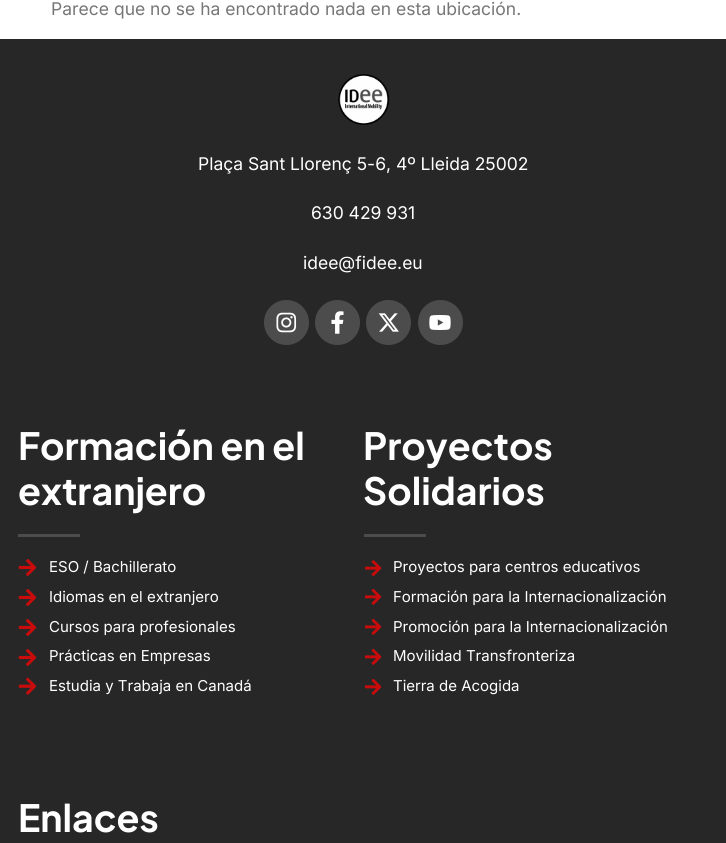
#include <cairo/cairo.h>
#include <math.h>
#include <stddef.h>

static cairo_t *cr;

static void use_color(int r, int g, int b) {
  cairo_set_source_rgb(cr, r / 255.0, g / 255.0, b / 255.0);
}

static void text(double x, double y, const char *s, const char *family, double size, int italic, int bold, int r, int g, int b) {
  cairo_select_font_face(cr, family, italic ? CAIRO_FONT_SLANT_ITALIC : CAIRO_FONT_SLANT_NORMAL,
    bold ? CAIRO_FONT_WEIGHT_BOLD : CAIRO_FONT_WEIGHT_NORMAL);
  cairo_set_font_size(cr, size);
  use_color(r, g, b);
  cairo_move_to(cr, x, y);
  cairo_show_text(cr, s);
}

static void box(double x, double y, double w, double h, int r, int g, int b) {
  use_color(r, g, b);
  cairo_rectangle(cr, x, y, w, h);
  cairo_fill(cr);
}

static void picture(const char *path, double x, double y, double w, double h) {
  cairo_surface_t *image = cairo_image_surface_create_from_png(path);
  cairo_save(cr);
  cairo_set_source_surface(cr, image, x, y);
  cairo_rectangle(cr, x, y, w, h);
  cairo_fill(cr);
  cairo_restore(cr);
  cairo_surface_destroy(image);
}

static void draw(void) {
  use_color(255, 255, 255);
  cairo_paint(cr);
  box(0, 39, 726, 804, 39, 39, 39);
  picture("img_01.png", 338, 74, 52, 51);
  use_color(76, 76, 76);
  cairo_arc(cr, 286.5, 322.5, 22.5, 0, 2 * M_PI);
  cairo_fill(cr);
  picture("img_02.png", 276, 312, 21, 21);
  cairo_arc(cr, 337.5, 322.5, 22.5, 0, 2 * M_PI);
  cairo_fill(cr);
  picture("img_03.png", 331, 311, 13, 23);
  cairo_arc(cr, 388.5, 322.5, 22.5, 0, 2 * M_PI);
  cairo_fill(cr);
  picture("img_04.png", 378, 313, 21, 19);
  cairo_arc(cr, 440.5, 322.5, 22.5, 0, 2 * M_PI);
  cairo_fill(cr);
  picture("img_05.png", 429, 315, 22, 15);
  box(18, 534, 62, 3, 76, 76, 76);
  picture("img_06.png", 18, 559, 19, 17);
  picture("img_06.png", 18, 589, 19, 17);
  picture("img_06.png", 18, 619, 19, 17);
  picture("img_06.png", 18, 649, 19, 17);
  picture("img_07.png", 18, 677, 19, 18);
  box(364, 534, 62, 3, 76, 76, 76);
  picture("img_08.png", 364, 560, 18, 17);
  picture("img_09.png", 364, 588, 18, 17);
  picture("img_09.png", 364, 618, 18, 17);
  picture("img_09.png", 364, 648, 18, 17);
  picture("img_09.png", 364, 678, 18, 17);
  text(51, 15, "Parece que no se ha encontrado nada en esta ubicación.", "Inter", 17.5, 0, 0, 118, 118, 118);
  text(198, 170, "Plaça Sant Llorenç 5-6, 4º Lleida 25002", "Inter", 17.5, 0, 0, 255, 255, 255);
  text(311, 219, "630 429 931", "Inter", 17.5, 0, 0, 255, 255, 255);
  text(303, 269, "idee@fidee.eu", "Inter", 17.5, 0, 0, 255, 255, 255);
  text(18, 460, "Formación en el", "Plus Jakarta Sans", 37.5, 0, 1, 255, 255, 255);
  text(18, 505, "extranjero", "Plus Jakarta Sans", 37.5, 0, 1, 255, 255, 255);
  text(49, 572, "ESO / Bachillerato", "Inter", 15, 0, 0, 255, 255, 255);
  text(49, 602, "Idiomas en el extranjero", "Inter", 15, 0, 0, 255, 255, 255);
  text(49, 632, "Cursos para profesionales", "Inter", 15, 0, 0, 255, 255, 255);
  text(49, 661, "Prácticas en Empresas", "Inter", 15, 0, 0, 255, 255, 255);
  text(49, 691, "Estudia y Trabaja en Canadá", "Inter", 15, 0, 0, 255, 255, 255);
  text(363, 460, "Proyectos", "Plus Jakarta Sans", 37.5, 0, 1, 255, 255, 255);
  text(363, 505, "Solidarios", "Plus Jakarta Sans", 37.5, 0, 1, 255, 255, 255);
  text(393, 572, "Proyectos para centros educativos", "Inter", 15, 0, 0, 255, 255, 255);
  text(393, 602, "Formación para la Internacionalización", "Inter", 15, 0, 0, 255, 255, 255);
  text(393, 632, "Promoción para la Internacionalización", "Inter", 15, 0, 0, 255, 255, 255);
  text(393, 661, "Movilidad Transfronteriza", "Inter", 15, 0, 0, 255, 255, 255);
  text(393, 691, "Tierra de Acogida", "Inter", 15, 0, 0, 255, 255, 255);
  text(18, 832, "Enlaces", "Plus Jakarta Sans", 37.5, 0, 1, 255, 255, 255);
}

int main(void) {
  cairo_surface_t *surface = cairo_image_surface_create(CAIRO_FORMAT_RGB24, 726, 843);
  cr = cairo_create(surface);
  cairo_font_options_t *options = cairo_font_options_create();
  cairo_font_options_set_hint_metrics(options, CAIRO_HINT_METRICS_OFF);
  cairo_font_options_set_hint_style(options, CAIRO_HINT_STYLE_NONE);
  cairo_set_font_options(cr, options);
  cairo_set_miter_limit(cr, 4);
  draw();
  cairo_surface_write_to_png(surface, "out.png");
  cairo_font_options_destroy(options);
  cairo_destroy(cr);
  cairo_surface_destroy(surface);
  return 0;
}
